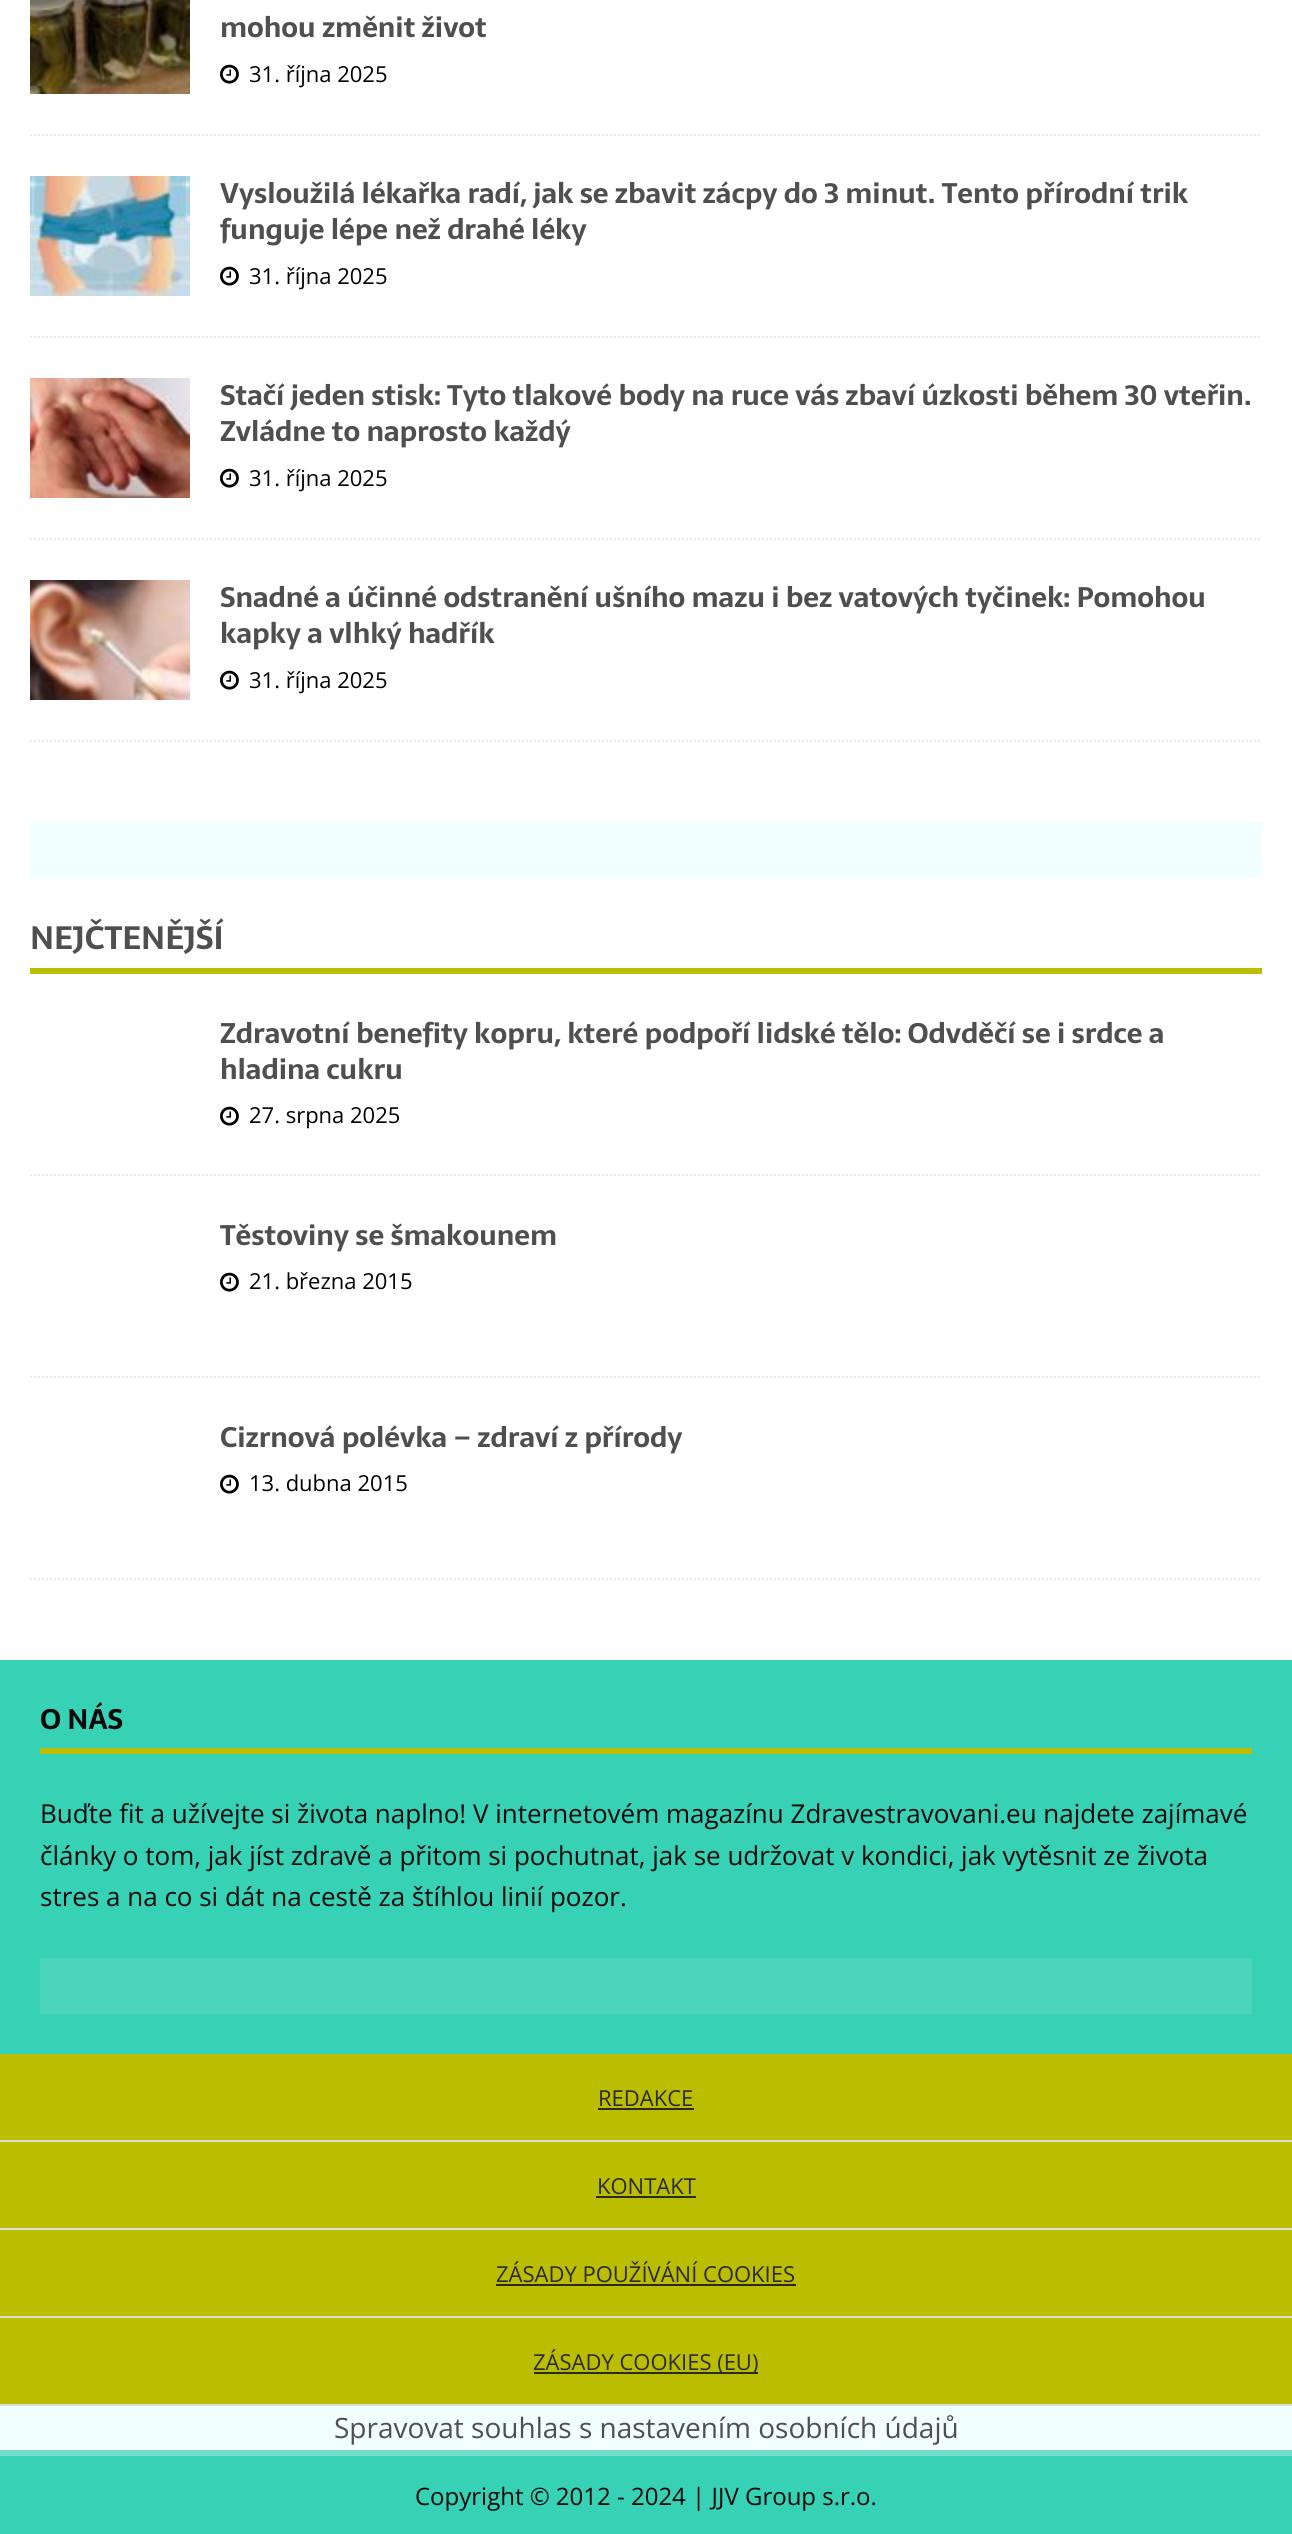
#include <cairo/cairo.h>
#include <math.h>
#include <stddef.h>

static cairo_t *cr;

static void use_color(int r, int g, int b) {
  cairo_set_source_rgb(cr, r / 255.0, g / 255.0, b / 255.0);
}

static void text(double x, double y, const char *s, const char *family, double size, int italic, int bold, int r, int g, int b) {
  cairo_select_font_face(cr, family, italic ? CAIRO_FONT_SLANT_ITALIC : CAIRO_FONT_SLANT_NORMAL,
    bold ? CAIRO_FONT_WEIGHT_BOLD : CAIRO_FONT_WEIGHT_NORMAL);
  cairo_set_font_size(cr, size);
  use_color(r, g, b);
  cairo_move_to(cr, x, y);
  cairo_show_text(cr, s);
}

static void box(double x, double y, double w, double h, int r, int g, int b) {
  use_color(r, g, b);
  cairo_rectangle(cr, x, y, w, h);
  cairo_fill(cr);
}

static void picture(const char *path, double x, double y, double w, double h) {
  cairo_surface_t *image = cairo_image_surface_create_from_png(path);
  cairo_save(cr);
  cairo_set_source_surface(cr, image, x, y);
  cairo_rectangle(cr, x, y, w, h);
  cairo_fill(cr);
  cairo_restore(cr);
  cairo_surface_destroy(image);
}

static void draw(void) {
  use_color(242, 255, 255);
  cairo_paint(cr);
  box(0, 0, 1292, 1660, 255, 255, 255);
  cairo_new_path(cr);
  cairo_move_to(cr, 30, 135);
  cairo_line_to(cr, 1262, 135);
  use_color(235, 235, 235);
  cairo_set_dash(cr, (double[]){2, 2}, 2, 0);
  cairo_stroke(cr);
  picture("img_01.png", 30, 0, 160, 94);
  picture("img_02.png", 220, 64, 19, 20);
  cairo_new_path(cr);
  cairo_move_to(cr, 30, 337);
  cairo_line_to(cr, 1262, 337);
  cairo_stroke(cr);
  picture("img_03.png", 30, 176, 160, 120);
  picture("img_02.png", 220, 266, 19, 20);
  cairo_new_path(cr);
  cairo_move_to(cr, 30, 539);
  cairo_line_to(cr, 1262, 539);
  cairo_stroke(cr);
  picture("img_04.png", 30, 378, 160, 120);
  picture("img_02.png", 220, 468, 19, 20);
  cairo_new_path(cr);
  cairo_move_to(cr, 30, 741);
  cairo_line_to(cr, 1262, 741);
  cairo_stroke(cr);
  picture("img_05.png", 30, 580, 160, 120);
  picture("img_02.png", 220, 670, 19, 20);
  box(30, 822, 1232, 56, 242, 255, 255);
  box(30, 968, 1232, 6, 187, 189, 0);
  cairo_new_path(cr);
  cairo_move_to(cr, 30, 1175);
  cairo_line_to(cr, 1262, 1175);
  use_color(235, 235, 235);
  cairo_stroke(cr);
  picture("img_02.png", 220, 1106, 19, 20);
  cairo_new_path(cr);
  cairo_move_to(cr, 30, 1377);
  cairo_line_to(cr, 1262, 1377);
  cairo_stroke(cr);
  picture("img_02.png", 220, 1272, 19, 20);
  cairo_new_path(cr);
  cairo_move_to(cr, 30, 1579);
  cairo_line_to(cr, 1262, 1579);
  cairo_stroke(cr);
  picture("img_02.png", 220, 1474, 19, 20);
  box(0, 1660, 1292, 394, 55, 209, 181);
  box(40, 1748, 1212, 6, 187, 189, 0);
  box(40, 1958, 1212, 56, 75, 214, 188);
  box(0, 2054, 1292, 350, 187, 189, 0);
  box(0, 2140, 1292, 2, 221, 221, 221);
  box(598, 2108, 96, 2, 42, 42, 42);
  box(0, 2228, 1292, 2, 221, 221, 221);
  box(596, 2196, 100, 2, 42, 42, 42);
  box(0, 2316, 1292, 2, 221, 221, 221);
  box(496, 2284, 300, 2, 42, 42, 42);
  box(0, 2404, 1292, 2, 221, 221, 221);
  box(534, 2372, 224, 2, 42, 42, 42);
  box(0, 2456, 1292, 78, 55, 209, 181);
  box(0, 2450, 1292, 6, 115, 223, 203);
  text(220, 37, "mohou změnit život", "Sarala", 28, 0, 1, 79, 79, 79);
  text(249, 82, "31. října 2025", "Open Sans", 22, 0, 0, 0, 0, 0);
  text(220, 203, "Vysloužilá lékařka radí, jak se zbavit zácpy do 3 minut. Tento přírodní trik", "Sarala", 28, 0, 1, 79, 79, 79);
  text(220, 239, "funguje lépe než drahé léky", "Sarala", 28, 0, 1, 79, 79, 79);
  text(249, 284, "31. října 2025", "Open Sans", 22, 0, 0, 0, 0, 0);
  text(220, 405, "Stačí jeden stisk: Tyto tlakové body na ruce vás zbaví úzkosti během 30 vteřin.", "Sarala", 28, 0, 1, 79, 79, 79);
  text(220, 441, "Zvládne to naprosto každý", "Sarala", 28, 0, 1, 79, 79, 79);
  text(249, 486, "31. října 2025", "Open Sans", 22, 0, 0, 0, 0, 0);
  text(220, 607, "Snadné a účinné odstranění ušního mazu i bez vatových tyčinek: Pomohou", "Sarala", 28, 0, 1, 79, 79, 79);
  text(220, 643, "kapky a vlhký hadřík", "Sarala", 28, 0, 1, 79, 79, 79);
  text(249, 688, "31. října 2025", "Open Sans", 22, 0, 0, 0, 0, 0);
  text(30, 949, "NEJČTENĚJŠÍ", "Sarala", 32, 0, 1, 79, 79, 79);
  text(220, 1043, "Zdravotní benefity kopru, které podpoří lidské tělo: Odvděčí se i srdce a", "Sarala", 28, 0, 1, 79, 79, 79);
  text(220, 1079, "hladina cukru", "Sarala", 28, 0, 1, 79, 79, 79);
  text(249, 1123, "27. srpna 2025", "Open Sans", 22, 0, 0, 0, 0, 0);
  text(220, 1245, "Těstoviny se šmakounem", "Sarala", 28, 0, 1, 79, 79, 79);
  text(249, 1289, "21. března 2015", "Open Sans", 22, 0, 0, 0, 0, 0);
  text(220, 1447, "Cizrnová polévka – zdraví z přírody", "Sarala", 28, 0, 1, 79, 79, 79);
  text(249, 1491, "13. dubna 2015", "Open Sans", 22, 0, 0, 0, 0, 0);
  text(40, 1729, "O NÁS", "Sarala", 28, 0, 1, 10, 10, 10);
  text(40, 1823, "Buďte fit a užívejte si života naplno! V internetovém magazínu Zdravestravovani.eu najdete zajímavé", "Open Sans", 26, 0, 0, 10, 10, 10);
  text(40, 1865, "články o tom, jak jíst zdravě a přitom si pochutnat, jak se udržovat v kondici, jak vytěsnit ze života", "Open Sans", 26, 0, 0, 10, 10, 10);
  text(40, 1906, "stres a na co si dát na cestě za štíhlou linií pozor.", "Open Sans", 26, 0, 0, 10, 10, 10);
  text(598, 2106, "REDAKCE", "Open Sans", 22, 0, 0, 42, 42, 42);
  text(597, 2194, "KONTAKT", "Open Sans", 22, 0, 0, 42, 42, 42);
  text(496, 2282, "ZÁSADY POUŽÍVÁNÍ COOKIES", "Open Sans", 22, 0, 0, 42, 42, 42);
  text(533, 2370, "ZÁSADY COOKIES (EU)", "Open Sans", 22, 0, 0, 42, 42, 42);
  text(334, 2438, "Spravovat souhlas s nastavením osobních údajů", "Open Sans", 28, 0, 0, 79, 79, 79);
  text(415, 2505, "Copyright © 2012 - 2024 | JJV Group s.r.o.", "Open Sans", 24, 0, 0, 10, 10, 10);
}

int main(void) {
  cairo_surface_t *surface = cairo_image_surface_create(CAIRO_FORMAT_RGB24, 1292, 2534);
  cr = cairo_create(surface);
  cairo_font_options_t *options = cairo_font_options_create();
  cairo_font_options_set_hint_metrics(options, CAIRO_HINT_METRICS_OFF);
  cairo_font_options_set_hint_style(options, CAIRO_HINT_STYLE_NONE);
  cairo_set_font_options(cr, options);
  cairo_set_miter_limit(cr, 4);
  draw();
  cairo_surface_write_to_png(surface, "out.png");
  cairo_font_options_destroy(options);
  cairo_destroy(cr);
  cairo_surface_destroy(surface);
  return 0;
}
